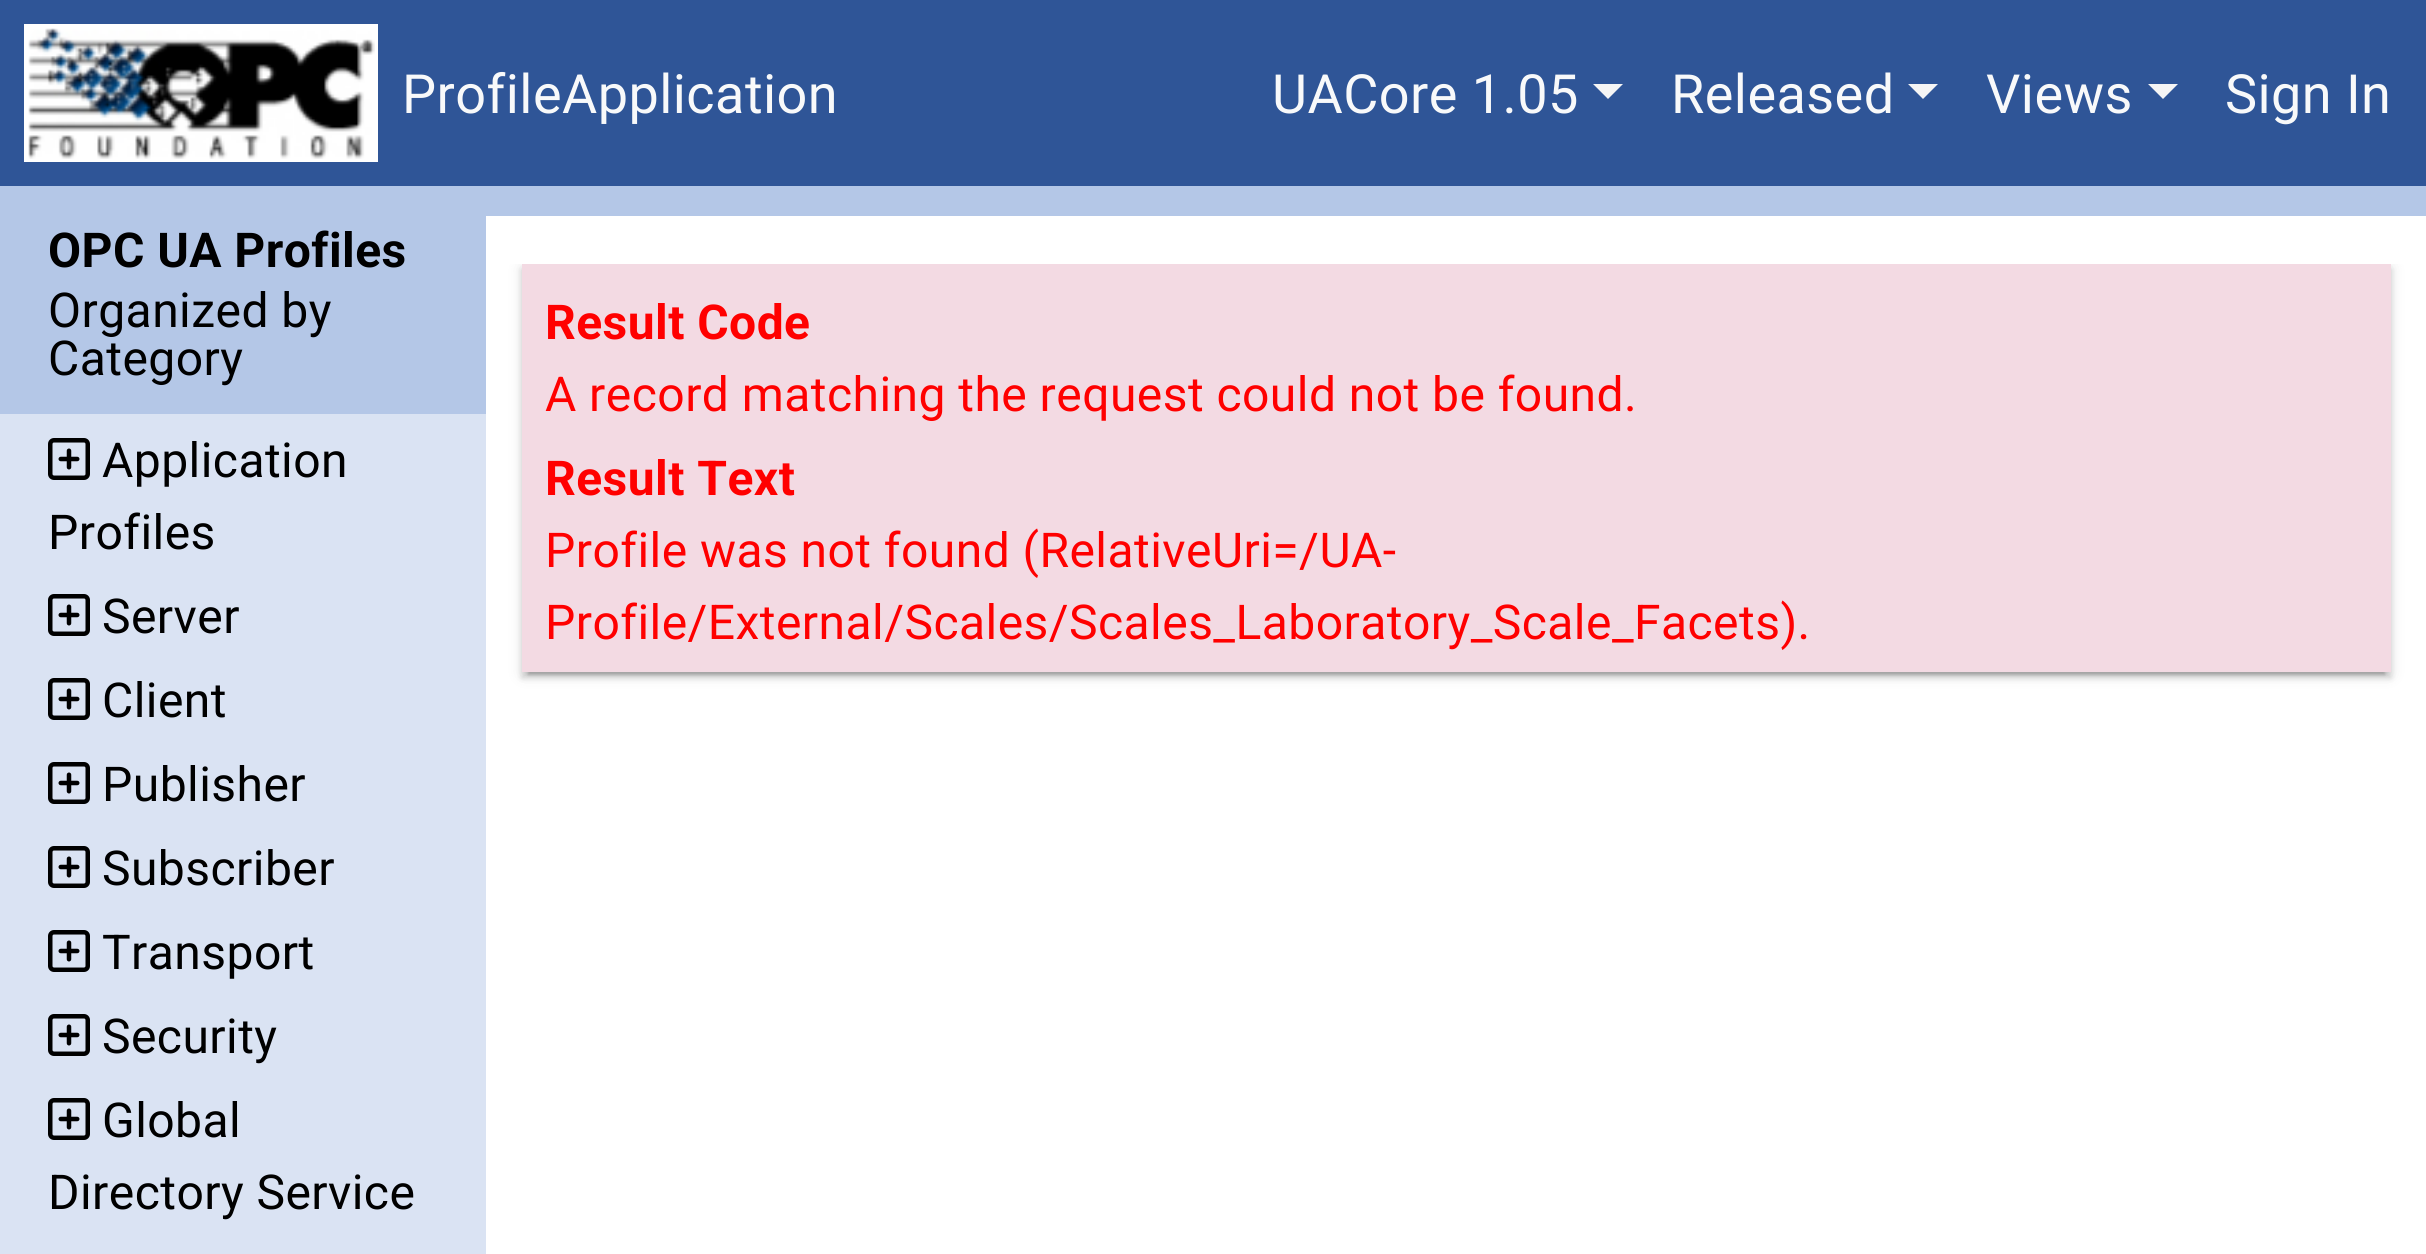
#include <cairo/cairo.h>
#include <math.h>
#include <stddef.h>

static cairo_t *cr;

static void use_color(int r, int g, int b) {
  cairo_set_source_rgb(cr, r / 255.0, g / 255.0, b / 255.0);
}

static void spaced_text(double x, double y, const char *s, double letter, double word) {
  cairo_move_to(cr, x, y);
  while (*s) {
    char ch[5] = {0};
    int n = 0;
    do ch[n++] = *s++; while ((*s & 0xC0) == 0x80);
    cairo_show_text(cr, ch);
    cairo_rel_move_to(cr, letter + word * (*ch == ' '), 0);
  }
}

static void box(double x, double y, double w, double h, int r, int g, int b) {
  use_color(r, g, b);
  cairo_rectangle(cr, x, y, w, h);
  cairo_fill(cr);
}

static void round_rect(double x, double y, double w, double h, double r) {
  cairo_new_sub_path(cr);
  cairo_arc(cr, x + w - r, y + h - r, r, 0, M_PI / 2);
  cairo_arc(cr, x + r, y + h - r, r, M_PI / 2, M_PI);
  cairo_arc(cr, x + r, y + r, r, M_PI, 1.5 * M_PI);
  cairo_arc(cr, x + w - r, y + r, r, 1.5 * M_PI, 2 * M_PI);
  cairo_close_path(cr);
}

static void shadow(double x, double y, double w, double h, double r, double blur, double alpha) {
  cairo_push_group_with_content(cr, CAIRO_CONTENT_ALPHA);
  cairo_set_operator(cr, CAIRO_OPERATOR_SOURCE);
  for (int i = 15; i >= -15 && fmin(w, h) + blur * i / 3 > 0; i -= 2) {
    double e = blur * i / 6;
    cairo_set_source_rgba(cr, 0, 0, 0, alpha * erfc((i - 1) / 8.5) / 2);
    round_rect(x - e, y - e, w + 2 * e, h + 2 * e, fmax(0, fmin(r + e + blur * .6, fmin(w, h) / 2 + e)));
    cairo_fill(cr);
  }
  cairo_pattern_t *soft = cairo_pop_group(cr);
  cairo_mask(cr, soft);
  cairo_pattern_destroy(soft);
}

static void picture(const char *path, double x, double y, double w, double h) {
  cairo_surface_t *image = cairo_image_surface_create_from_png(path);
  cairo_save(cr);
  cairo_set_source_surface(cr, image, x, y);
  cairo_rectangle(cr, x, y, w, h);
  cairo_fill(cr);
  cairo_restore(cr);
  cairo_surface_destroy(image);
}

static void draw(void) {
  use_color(255, 255, 255);
  cairo_paint(cr);
  box(0, 0, 2426, 186, 47, 85, 151);
  box(0, 186, 2426, 30, 180, 199, 231);
  box(24, 24, 354, 138, 255, 255, 255);
  picture("img_01.png", 28, 28, 347, 131);
  use_color(245, 245, 245);
  cairo_new_path(cr);
  cairo_move_to(cr, 1593, 84);
  cairo_line_to(cr, 1623, 84);
  cairo_line_to(cr, 1608, 99);
  cairo_close_path(cr);
  cairo_fill(cr);
  cairo_new_path(cr);
  cairo_move_to(cr, 1908, 84);
  cairo_line_to(cr, 1938, 84);
  cairo_line_to(cr, 1923, 99);
  cairo_close_path(cr);
  cairo_fill(cr);
  cairo_new_path(cr);
  cairo_move_to(cr, 2148, 84);
  cairo_line_to(cr, 2178, 84);
  cairo_line_to(cr, 2163, 99);
  cairo_close_path(cr);
  cairo_fill(cr);
  box(0, 414, 486, 840, 218, 227, 243);
  box(0, 216, 486, 198, 180, 199, 231);
  picture("img_02.png", 48, 438, 42, 42);
  picture("img_02.png", 48, 594, 42, 42);
  picture("img_02.png", 48, 678, 42, 42);
  picture("img_02.png", 48, 762, 42, 42);
  picture("img_02.png", 48, 846, 42, 42);
  picture("img_02.png", 48, 930, 42, 42);
  picture("img_02.png", 48, 1014, 42, 42);
  picture("img_02.png", 48, 1098, 42, 42);
  cairo_save(cr);
  cairo_rectangle(cr, 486, 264, 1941, 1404);
  cairo_clip(cr);
  use_color(0, 0, 0);
  shadow(522, 267, 1869, 408, 0, 7.5, 0.12);
  cairo_restore(cr);
  use_color(0, 0, 0);
  shadow(522, 270, 1869, 408, 0, 3, 0.14);
  shadow(528, 279, 1857, 396, 0, 1.5, 0.2);
  box(522, 264, 1869, 408, 243, 218, 227);
  cairo_select_font_face(cr, "Roboto", CAIRO_FONT_SLANT_NORMAL, CAIRO_FONT_WEIGHT_NORMAL);
  cairo_set_font_size(cr, 54);
  use_color(248, 249, 250);
  spaced_text(402, 113, "ProfileApplication", 0.45, 0);
  spaced_text(1272, 113, "UACore 1.05", 0.45, 0);
  spaced_text(1671, 113, "Released", 0.45, 0);
  spaced_text(1986, 113, "Views", 0.45, 0);
  spaced_text(2225, 113, "Sign In", 0.45, 0);
  cairo_select_font_face(cr, "Roboto", CAIRO_FONT_SLANT_NORMAL, CAIRO_FONT_WEIGHT_BOLD);
  cairo_set_font_size(cr, 48);
  use_color(0, 0, 0);
  spaced_text(48, 267, "OPC UA Profiles", 0.45, 0);
  cairo_select_font_face(cr, "Roboto", CAIRO_FONT_SLANT_NORMAL, CAIRO_FONT_WEIGHT_NORMAL);
  spaced_text(48, 327, "Organized by", 0.45, 0);
  spaced_text(48, 375, "Category", 0.45, 0);
  spaced_text(102, 477, "Application", 0.45, 0);
  spaced_text(48, 549, "Profiles", 0.45, 0);
  spaced_text(102, 633, "Server", 0.45, 0);
  spaced_text(102, 717, "Client", 0.45, 0);
  spaced_text(102, 801, "Publisher", 0.45, 0);
  spaced_text(102, 885, "Subscriber", 0.45, 0);
  spaced_text(102, 969, "Transport", 0.45, 0);
  spaced_text(102, 1053, "Security", 0.45, 0);
  spaced_text(102, 1137, "Global", 0.45, 0);
  spaced_text(48, 1209, "Directory Service", 0.45, 0);
  cairo_select_font_face(cr, "Roboto", CAIRO_FONT_SLANT_NORMAL, CAIRO_FONT_WEIGHT_BOLD);
  use_color(255, 0, 0);
  spaced_text(545, 339, "Result Code", 0.45, 0);
  cairo_select_font_face(cr, "Roboto", CAIRO_FONT_SLANT_NORMAL, CAIRO_FONT_WEIGHT_NORMAL);
  spaced_text(545, 411, "A record matching the request could not be found.", 0.45, 0);
  cairo_select_font_face(cr, "Roboto", CAIRO_FONT_SLANT_NORMAL, CAIRO_FONT_WEIGHT_BOLD);
  spaced_text(545, 495, "Result Text", 0.45, 0);
  cairo_select_font_face(cr, "Roboto", CAIRO_FONT_SLANT_NORMAL, CAIRO_FONT_WEIGHT_NORMAL);
  spaced_text(545, 567, "Profile was not found (RelativeUri=/UA-", 0.45, 0);
  spaced_text(545, 639, "Profile/External/Scales/Scales_Laboratory_Scale_Facets).", 0.45, 0);
}

int main(void) {
  cairo_surface_t *surface = cairo_image_surface_create(CAIRO_FORMAT_RGB24, 2426, 1254);
  cr = cairo_create(surface);
  cairo_font_options_t *options = cairo_font_options_create();
  cairo_font_options_set_hint_metrics(options, CAIRO_HINT_METRICS_OFF);
  cairo_font_options_set_hint_style(options, CAIRO_HINT_STYLE_NONE);
  cairo_set_font_options(cr, options);
  cairo_set_miter_limit(cr, 4);
  draw();
  cairo_surface_write_to_png(surface, "out.png");
  cairo_font_options_destroy(options);
  cairo_destroy(cr);
  cairo_surface_destroy(surface);
  return 0;
}
